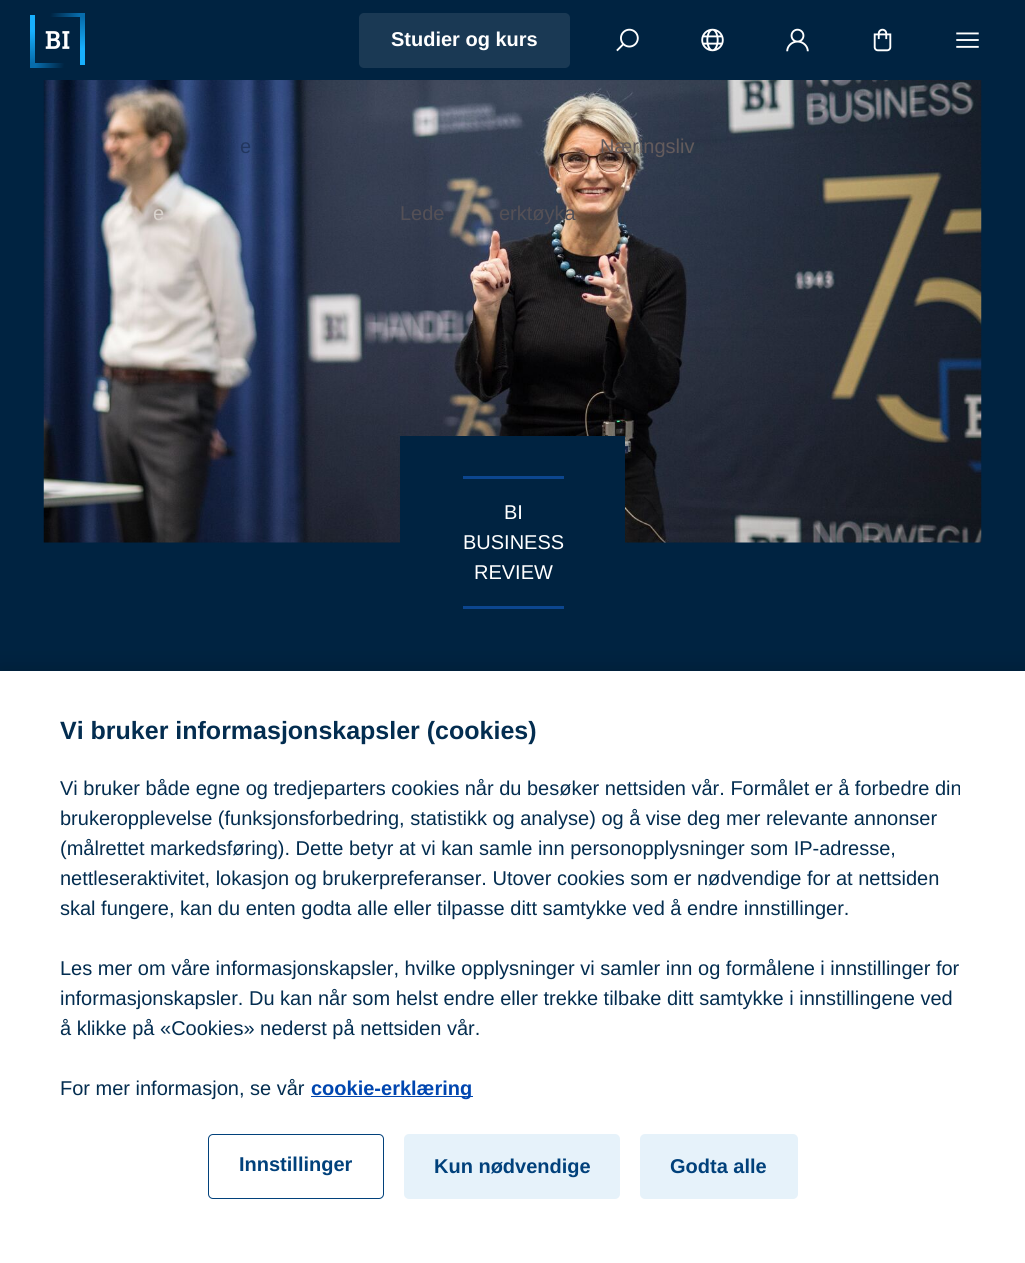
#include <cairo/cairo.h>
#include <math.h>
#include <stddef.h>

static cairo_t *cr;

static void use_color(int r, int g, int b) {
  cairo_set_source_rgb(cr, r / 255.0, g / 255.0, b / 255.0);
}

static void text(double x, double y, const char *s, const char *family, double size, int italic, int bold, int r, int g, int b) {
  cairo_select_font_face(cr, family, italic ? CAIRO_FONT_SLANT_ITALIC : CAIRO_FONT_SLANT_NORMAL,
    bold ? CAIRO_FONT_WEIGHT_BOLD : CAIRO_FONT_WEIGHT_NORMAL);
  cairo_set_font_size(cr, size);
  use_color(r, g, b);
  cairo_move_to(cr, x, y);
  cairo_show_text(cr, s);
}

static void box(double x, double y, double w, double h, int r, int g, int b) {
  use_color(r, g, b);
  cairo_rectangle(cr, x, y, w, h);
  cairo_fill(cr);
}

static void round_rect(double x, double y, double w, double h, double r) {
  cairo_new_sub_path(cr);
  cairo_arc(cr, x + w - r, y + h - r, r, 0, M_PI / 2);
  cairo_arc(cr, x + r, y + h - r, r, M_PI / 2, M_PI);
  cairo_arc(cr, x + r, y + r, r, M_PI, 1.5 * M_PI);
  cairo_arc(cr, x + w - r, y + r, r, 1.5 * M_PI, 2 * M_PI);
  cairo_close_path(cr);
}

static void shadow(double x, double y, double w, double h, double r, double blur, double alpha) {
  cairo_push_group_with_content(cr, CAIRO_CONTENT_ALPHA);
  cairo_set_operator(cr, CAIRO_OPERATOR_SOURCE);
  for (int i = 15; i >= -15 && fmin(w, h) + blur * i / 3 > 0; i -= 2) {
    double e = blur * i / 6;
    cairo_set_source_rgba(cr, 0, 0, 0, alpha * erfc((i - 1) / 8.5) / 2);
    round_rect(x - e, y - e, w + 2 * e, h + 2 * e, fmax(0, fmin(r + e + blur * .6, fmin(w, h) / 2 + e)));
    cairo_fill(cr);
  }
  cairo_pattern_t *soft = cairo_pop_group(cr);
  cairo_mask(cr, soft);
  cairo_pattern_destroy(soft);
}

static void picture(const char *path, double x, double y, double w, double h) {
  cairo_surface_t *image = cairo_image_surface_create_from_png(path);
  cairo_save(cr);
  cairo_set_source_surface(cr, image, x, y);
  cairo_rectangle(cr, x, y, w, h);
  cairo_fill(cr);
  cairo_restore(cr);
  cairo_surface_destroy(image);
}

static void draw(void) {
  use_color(0, 35, 65);
  cairo_paint(cr);
  picture("img_01.png", 30, 13, 55, 55);
  use_color(26, 57, 84);
  round_rect(359, 13, 211, 55, 5);
  cairo_fill(cr);
  picture("img_02.png", 616, 28, 23, 24);
  picture("img_03.png", 701, 28, 23, 24);
  picture("img_04.png", 786, 28, 23, 24);
  picture("img_05.png", 873, 28, 19, 24);
  picture("img_06.png", 956, 32, 23, 16);
  picture("img_07.png", 43, 80, 939, 463);
  box(400, 436, 225, 107, 0, 35, 65);
  box(463, 476, 101, 3, 12, 70, 143);
  box(463, 606, 101, 3, 12, 70, 143);
  use_color(0, 0, 0);
  shadow(0, 671, 1025, 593, 0, 11, 0.2);
  box(0, 671, 1025, 592, 255, 255, 255);
  box(311, 1096, 162, 1, 0, 70, 176);
  round_rect(208.5, 1134.5, 175, 64, 4.5);
  use_color(1, 65, 123);
  cairo_set_line_width(cr, 1);
  cairo_stroke(cr);
  use_color(230, 242, 250);
  round_rect(404, 1134, 216, 65, 5);
  cairo_fill(cr);
  round_rect(640, 1134, 158, 65, 5);
  cairo_fill(cr);
  text(391, 46, "Studier og kurs", "Liberation Sans", 20, 0, 1, 255, 255, 255);
  text(240, 153, "e", "Liberation Sans", 20, 0, 0, 34, 54, 94);
  text(600, 153, "Næringsliv", "Liberation Sans", 20, 0, 0, 99, 91, 92);
  text(153, 220, "e", "Liberation Sans", 20, 0, 0, 217, 211, 205);
  text(400, 220, "Lede", "Liberation Sans", 20, 0, 0, 84, 80, 86);
  text(499, 220, "erktøyka", "Liberation Sans", 20, 0, 0, 84, 80, 86);
  text(504, 519, "BI", "Liberation Sans", 20, 0, 0, 255, 255, 255);
  text(463, 549, "BUSINESS", "Liberation Sans", 20, 0, 0, 255, 255, 255);
  text(474, 579, "REVIEW", "Liberation Sans", 20, 0, 0, 255, 255, 255);
  text(60, 739, "Vi bruker informasjonskapsler (cookies)", "Liberation Sans", 25, 0, 1, 3, 45, 80);
  text(60, 795, "Vi bruker både egne og tredjeparters cookies når du besøker nettsiden vår. Formålet er å forbedre din", "Liberation Sans", 20, 0, 0, 3, 45, 80);
  text(60, 825, "brukeropplevelse (funksjonsforbedring, statistikk og analyse) og å vise deg mer relevante annonser", "Liberation Sans", 20, 0, 0, 3, 45, 80);
  text(60, 855, "(målrettet markedsføring). Dette betyr at vi kan samle inn personopplysninger som IP-adresse,", "Liberation Sans", 20, 0, 0, 3, 45, 80);
  text(60, 885, "nettleseraktivitet, lokasjon og brukerpreferanser. Utover cookies som er nødvendige for at nettsiden", "Liberation Sans", 20, 0, 0, 3, 45, 80);
  text(60, 915, "skal fungere, kan du enten godta alle eller tilpasse ditt samtykke ved å endre innstillinger.", "Liberation Sans", 20, 0, 0, 3, 45, 80);
  text(60, 975, "Les mer om våre informasjonskapsler, hvilke opplysninger vi samler inn og formålene i innstillinger for", "Liberation Sans", 20, 0, 0, 3, 45, 80);
  text(60, 1005, "informasjonskapsler. Du kan når som helst endre eller trekke tilbake ditt samtykke i innstillingene ved", "Liberation Sans", 20, 0, 0, 3, 45, 80);
  text(60, 1035, "å klikke på «Cookies» nederst på nettsiden vår.", "Liberation Sans", 20, 0, 0, 3, 45, 80);
  text(60, 1095, "For mer informasjon, se vår", "Liberation Sans", 20, 0, 0, 3, 45, 80);
  text(311, 1095, "cookie-erklæring", "Liberation Sans", 20, 0, 1, 0, 70, 176);
  text(239, 1171, "Innstillinger", "Liberation Sans", 20, 0, 1, 1, 65, 123);
  text(434, 1173, "Kun nødvendige", "Liberation Sans", 20, 0, 1, 1, 65, 123);
  text(670, 1173, "Godta alle", "Liberation Sans", 20, 0, 1, 1, 65, 123);
}

int main(void) {
  cairo_surface_t *surface = cairo_image_surface_create(CAIRO_FORMAT_RGB24, 1025, 1263);
  cr = cairo_create(surface);
  cairo_font_options_t *options = cairo_font_options_create();
  cairo_font_options_set_hint_metrics(options, CAIRO_HINT_METRICS_OFF);
  cairo_font_options_set_hint_style(options, CAIRO_HINT_STYLE_NONE);
  cairo_set_font_options(cr, options);
  cairo_set_miter_limit(cr, 4);
  draw();
  cairo_surface_write_to_png(surface, "out.png");
  cairo_font_options_destroy(options);
  cairo_destroy(cr);
  cairo_surface_destroy(surface);
  return 0;
}
